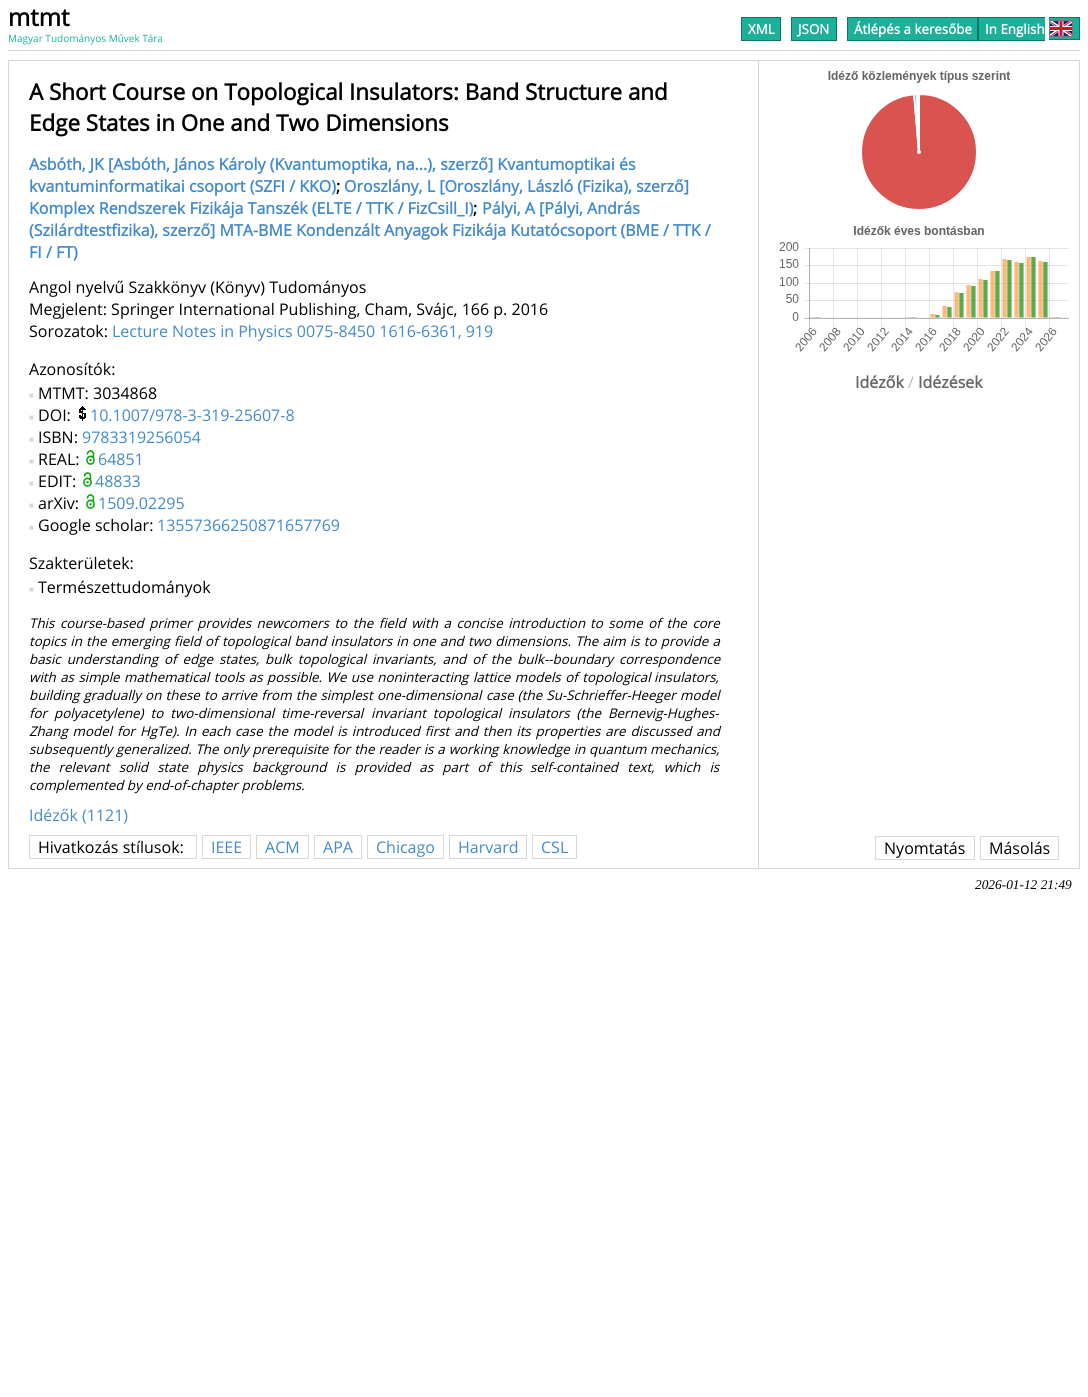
#include <cairo/cairo.h>
#include <math.h>
#include <stddef.h>

static cairo_t *cr;

static void use_color(int r, int g, int b) {
  cairo_set_source_rgb(cr, r / 255.0, g / 255.0, b / 255.0);
}

static void text(double x, double y, const char *s, const char *family, double size, int italic, int bold, int r, int g, int b) {
  cairo_select_font_face(cr, family, italic ? CAIRO_FONT_SLANT_ITALIC : CAIRO_FONT_SLANT_NORMAL,
    bold ? CAIRO_FONT_WEIGHT_BOLD : CAIRO_FONT_WEIGHT_NORMAL);
  cairo_set_font_size(cr, size);
  use_color(r, g, b);
  cairo_move_to(cr, x, y);
  cairo_show_text(cr, s);
}

static void spaced_text(double x, double y, const char *s, double letter, double word) {
  cairo_move_to(cr, x, y);
  while (*s) {
    char ch[5] = {0};
    int n = 0;
    do ch[n++] = *s++; while ((*s & 0xC0) == 0x80);
    cairo_show_text(cr, ch);
    cairo_rel_move_to(cr, letter + word * (*ch == ' '), 0);
  }
}

static void box(double x, double y, double w, double h, int r, int g, int b) {
  use_color(r, g, b);
  cairo_rectangle(cr, x, y, w, h);
  cairo_fill(cr);
}

static void picture(const char *path, double x, double y, double w, double h) {
  cairo_surface_t *image = cairo_image_surface_create_from_png(path);
  cairo_save(cr);
  cairo_set_source_surface(cr, image, x, y);
  cairo_rectangle(cr, x, y, w, h);
  cairo_fill(cr);
  cairo_restore(cr);
  cairo_surface_destroy(image);
}

static void draw(void) {
  use_color(255, 255, 255);
  cairo_paint(cr);
  box(8, 50, 1072, 1, 215, 215, 215);
  use_color(28, 175, 154);
  cairo_rectangle(cr, 741.5, 17.5, 39, 23);
  cairo_fill_preserve(cr);
  use_color(11, 121, 105);
  cairo_set_line_width(cr, 1);
  cairo_stroke(cr);
  use_color(28, 175, 154);
  cairo_rectangle(cr, 791.5, 17.5, 45, 23);
  cairo_fill_preserve(cr);
  use_color(11, 121, 105);
  cairo_stroke(cr);
  use_color(28, 175, 154);
  cairo_rectangle(cr, 847.5, 17.5, 130, 23);
  cairo_fill_preserve(cr);
  use_color(11, 121, 105);
  cairo_stroke(cr);
  box(979, 18, 66, 22, 28, 175, 154);
  box(978, 17, 67, 1, 11, 121, 105);
  box(978, 40, 67, 1, 11, 121, 105);
  box(978, 17, 1, 24, 11, 121, 105);
  box(1049, 18, 30, 21, 28, 175, 154);
  box(1049, 17, 31, 1, 11, 121, 105);
  box(1079, 17, 1, 23, 11, 121, 105);
  box(1049, 39, 31, 1, 11, 121, 105);
  cairo_rectangle(cr, 1049.5, 20.5, 23, 16);
  use_color(119, 119, 119);
  cairo_stroke(cr);
  picture("img_01.png", 1050, 21, 22, 15);
  cairo_rectangle(cr, 8.5, 60.5, 1071, 808);
  use_color(215, 215, 215);
  cairo_stroke(cr);
  picture("img_02.png", 79, 406, 7, 15);
  picture("img_03.png", 86, 450, 9, 15);
  picture("img_03.png", 83, 472, 9, 15);
  picture("img_03.png", 86, 494, 9, 15);
  box(758, 61, 1, 807, 215, 215, 215);
  picture("img_04.png", 828, 71, 183, 138);
  picture("img_05.png", 779, 226, 290, 126);
  cairo_rectangle(cr, 29.5, 835.5, 167, 23);
  cairo_stroke(cr);
  cairo_rectangle(cr, 202.5, 835.5, 48, 23);
  cairo_stroke(cr);
  cairo_rectangle(cr, 256.5, 835.5, 52, 23);
  cairo_stroke(cr);
  cairo_rectangle(cr, 314.5, 835.5, 47, 23);
  cairo_stroke(cr);
  cairo_rectangle(cr, 367.5, 835.5, 76, 23);
  cairo_stroke(cr);
  cairo_rectangle(cr, 449.5, 835.5, 77, 23);
  cairo_stroke(cr);
  cairo_rectangle(cr, 532.5, 835.5, 44, 23);
  cairo_stroke(cr);
  cairo_rectangle(cr, 875.5, 836.5, 99, 23);
  cairo_stroke(cr);
  cairo_rectangle(cr, 980.5, 836.5, 78, 23);
  cairo_stroke(cr);
  text(8, 26, "mtmt", "Open Sans", 24, 0, 1, 0, 0, 0);
  text(8, 42, "Magyar Tudományos Művek Tára", "Open Sans", 10, 0, 0, 28, 175, 154);
  text(748, 34, "XML", "Open Sans", 13.35, 0, 1, 255, 255, 255);
  text(798, 34, "JSON", "Open Sans", 13.35, 0, 1, 255, 255, 255);
  text(854, 34, "Átlépés a keresőbe", "Open Sans", 13.35, 0, 1, 255, 255, 255);
  text(985, 34, "In English", "Open Sans", 13.35, 0, 1, 255, 255, 255);
  text(29, 100, "A Short Course on Topological Insulators: Band Structure and", "Open Sans", 22.4, 0, 1, 0, 0, 0);
  text(29, 131, "Edge States in One and Two Dimensions", "Open Sans", 22.4, 0, 1, 0, 0, 0);
  text(29, 170, "Asbóth, JK [Asbóth, János Károly (Kvantumoptika, na...), szerző] Kvantumoptikai és", "Open Sans", 16, 0, 1, 66, 139, 202);
  text(29, 192, "kvantuminformatikai csoport (SZFI / KKO)", "Open Sans", 16, 0, 1, 66, 139, 202);
  text(336, 192, ";", "Open Sans", 16, 0, 1, 0, 0, 0);
  text(344, 192, "Oroszlány, L [Oroszlány, László (Fizika), szerző]", "Open Sans", 16, 0, 1, 66, 139, 202);
  text(29, 214, "Komplex Rendszerek Fizikája Tanszék (ELTE / TTK / FizCsill_I)", "Open Sans", 16, 0, 1, 66, 139, 202);
  text(473, 214, ";", "Open Sans", 16, 0, 1, 0, 0, 0);
  text(482, 214, "Pályi, A [Pályi, András", "Open Sans", 16, 0, 1, 66, 139, 202);
  text(29, 236, "(Szilárdtestfizika), szerző] MTA-BME Kondenzált Anyagok Fizikája Kutatócsoport (BME / TTK /", "Open Sans", 16, 0, 1, 66, 139, 202);
  text(29, 258, "FI / FT)", "Open Sans", 16, 0, 1, 66, 139, 202);
  text(29, 293, "Angol nyelvű Szakkönyv (Könyv) Tudományos", "Open Sans", 16, 0, 0, 0, 0, 0);
  text(29, 315, "Megjelent: Springer International Publishing, Cham, Svájc, 166 p. 2016", "Open Sans", 16, 0, 0, 0, 0, 0);
  text(29, 337, "Sorozatok:", "Open Sans", 16, 0, 0, 0, 0, 0);
  text(112, 337, "Lecture Notes in Physics 0075-8450 1616-6361, 919", "Open Sans", 16, 0, 0, 66, 139, 202);
  text(29, 375, "Azonosítók:", "Open Sans", 16, 0, 0, 0, 0, 0);
  text(29, 398, "■", "Liberation Serif", 8, 0, 0, 215, 215, 215);
  text(38, 399, "MTMT: 3034868", "Open Sans", 16, 0, 0, 0, 0, 0);
  text(29, 420, "■", "Liberation Serif", 8, 0, 0, 215, 215, 215);
  text(38, 421, "DOI:", "Open Sans", 16, 0, 0, 0, 0, 0);
  text(90, 421, "10.1007/978-3-319-25607-8", "Open Sans", 16, 0, 0, 66, 139, 202);
  text(29, 442, "■", "Liberation Serif", 8, 0, 0, 215, 215, 215);
  text(38, 443, "ISBN:", "Open Sans", 16, 0, 0, 0, 0, 0);
  text(82, 443, "9783319256054", "Open Sans", 16, 0, 0, 66, 139, 202);
  text(29, 464, "■", "Liberation Serif", 8, 0, 0, 215, 215, 215);
  text(38, 465, "REAL:", "Open Sans", 16, 0, 0, 0, 0, 0);
  text(98, 465, "64851", "Open Sans", 16, 0, 0, 66, 139, 202);
  text(29, 486, "■", "Liberation Serif", 8, 0, 0, 215, 215, 215);
  text(38, 487, "EDIT:", "Open Sans", 16, 0, 0, 0, 0, 0);
  text(95, 487, "48833", "Open Sans", 16, 0, 0, 66, 139, 202);
  text(29, 508, "■", "Liberation Serif", 8, 0, 0, 215, 215, 215);
  text(38, 509, "arXiv:", "Open Sans", 16, 0, 0, 0, 0, 0);
  text(98, 509, "1509.02295", "Open Sans", 16, 0, 0, 66, 139, 202);
  text(29, 530, "■", "Liberation Serif", 8, 0, 0, 215, 215, 215);
  text(38, 531, "Google scholar:", "Open Sans", 16, 0, 0, 0, 0, 0);
  text(157, 531, "13557366250871657769", "Open Sans", 16, 0, 0, 66, 139, 202);
  text(29, 569, "Szakterületek:", "Open Sans", 16, 0, 0, 0, 0, 0);
  text(29, 592, "■", "Liberation Serif", 8, 0, 0, 215, 215, 215);
  text(38, 593, "Természettudományok", "Open Sans", 16, 0, 0, 0, 0, 0);
  cairo_select_font_face(cr, "Open Sans", CAIRO_FONT_SLANT_ITALIC, CAIRO_FONT_WEIGHT_NORMAL);
  cairo_set_font_size(cr, 13.35);
  spaced_text(29, 628, "This course-based primer provides newcomers to the field with a concise introduction", 0, 2.1);
  spaced_text(590, 628, "to some of the core", 0, 2.1);
  spaced_text(29, 646, "topics in the emerging field of topological band insulators in", 0, 0.75);
  spaced_text(412, 646, "one and two dimensions. The aim is to provide a", 0, 0.75);
  spaced_text(29, 664, "basic understanding of edge states,", 0, 2.5);
  spaced_text(265, 664, "bulk topological invariants, and of the bulk--boundary correspondence", 0, 2.5);
  spaced_text(29, 682, "with as simple", 0, 1);
  spaced_text(124, 682, "mathematical tools as possible. We use noninteracting lattice models of topological", 0, 1);
  text(654, 682, "insulators,", "Open Sans", 13.35, 1, 0, 0, 0, 0);
  spaced_text(29, 700, "building gradually on these to arrive from the simplest one-dimensional", 0, 0.75);
  spaced_text(486, 700, "case (the Su-Schrieffer-Heeger model", 0, 0.75);
  spaced_text(29, 718, "for polyacetylene) to two-dimensional time-reversal", 0, 3.5);
  spaced_text(371, 718, "invariant topological insulators (the Bernevig-Hughes-", 0, 3.5);
  spaced_text(29, 736, "Zhang model for HgTe). In each", 0, 1.4);
  spaced_text(235, 736, "case the model is introduced first and then its properties are discussed and", 0, 1.4);
  text(29, 754, "subsequently", "Open Sans", 13.35, 1, 0, 0, 0, 0);
  spaced_text(116, 754, "generalized. The only prerequisite for the reader is a working knowledge in quantum", 0, 0.4);
  text(650, 754, "mechanics,", "Open Sans", 13.35, 1, 0, 0, 0, 0);
  spaced_text(29, 772, "the relevant solid state physics background is provided as part of this", 0, 5.75);
  spaced_text(530, 772, "self-contained text, which is", 0, 5.75);
  text(29, 790, "complemented by end-of-chapter problems.", "Open Sans", 13.35, 1, 0, 0, 0, 0);
  text(29, 821, "Idézők (1121)", "Open Sans", 16, 0, 0, 66, 139, 202);
  text(855, 388, "Idézők", "Open Sans", 16, 0, 1, 102, 102, 102);
  text(908, 388, "/", "Open Sans", 16, 0, 0, 183, 183, 183);
  text(918, 388, "Idézések", "Open Sans", 16, 0, 1, 102, 102, 102);
  text(38, 853, "Hivatkozás stílusok:", "Open Sans", 16, 0, 0, 0, 0, 0);
  text(211, 853, "IEEE", "Open Sans", 16, 0, 0, 66, 139, 202);
  text(265, 853, "ACM", "Open Sans", 16, 0, 0, 66, 139, 202);
  text(323, 853, "APA", "Open Sans", 16, 0, 0, 66, 139, 202);
  text(376, 853, "Chicago", "Open Sans", 16, 0, 0, 66, 139, 202);
  text(458, 853, "Harvard", "Open Sans", 16, 0, 0, 66, 139, 202);
  text(541, 853, "CSL", "Open Sans", 16, 0, 0, 66, 139, 202);
  text(884, 854, "Nyomtatás", "Open Sans", 16, 0, 0, 0, 0, 0);
  text(989, 854, "Másolás", "Open Sans", 16, 0, 0, 0, 0, 0);
  text(975, 889, "2026-01-12 21:49", "Liberation Serif", 13.35, 1, 0, 0, 0, 0);
}

int main(void) {
  cairo_surface_t *surface = cairo_image_surface_create(CAIRO_FORMAT_RGB24, 1088, 1397);
  cr = cairo_create(surface);
  cairo_font_options_t *options = cairo_font_options_create();
  cairo_font_options_set_hint_metrics(options, CAIRO_HINT_METRICS_OFF);
  cairo_font_options_set_hint_style(options, CAIRO_HINT_STYLE_NONE);
  cairo_set_font_options(cr, options);
  cairo_set_miter_limit(cr, 4);
  draw();
  cairo_surface_write_to_png(surface, "out.png");
  cairo_font_options_destroy(options);
  cairo_destroy(cr);
  cairo_surface_destroy(surface);
  return 0;
}
